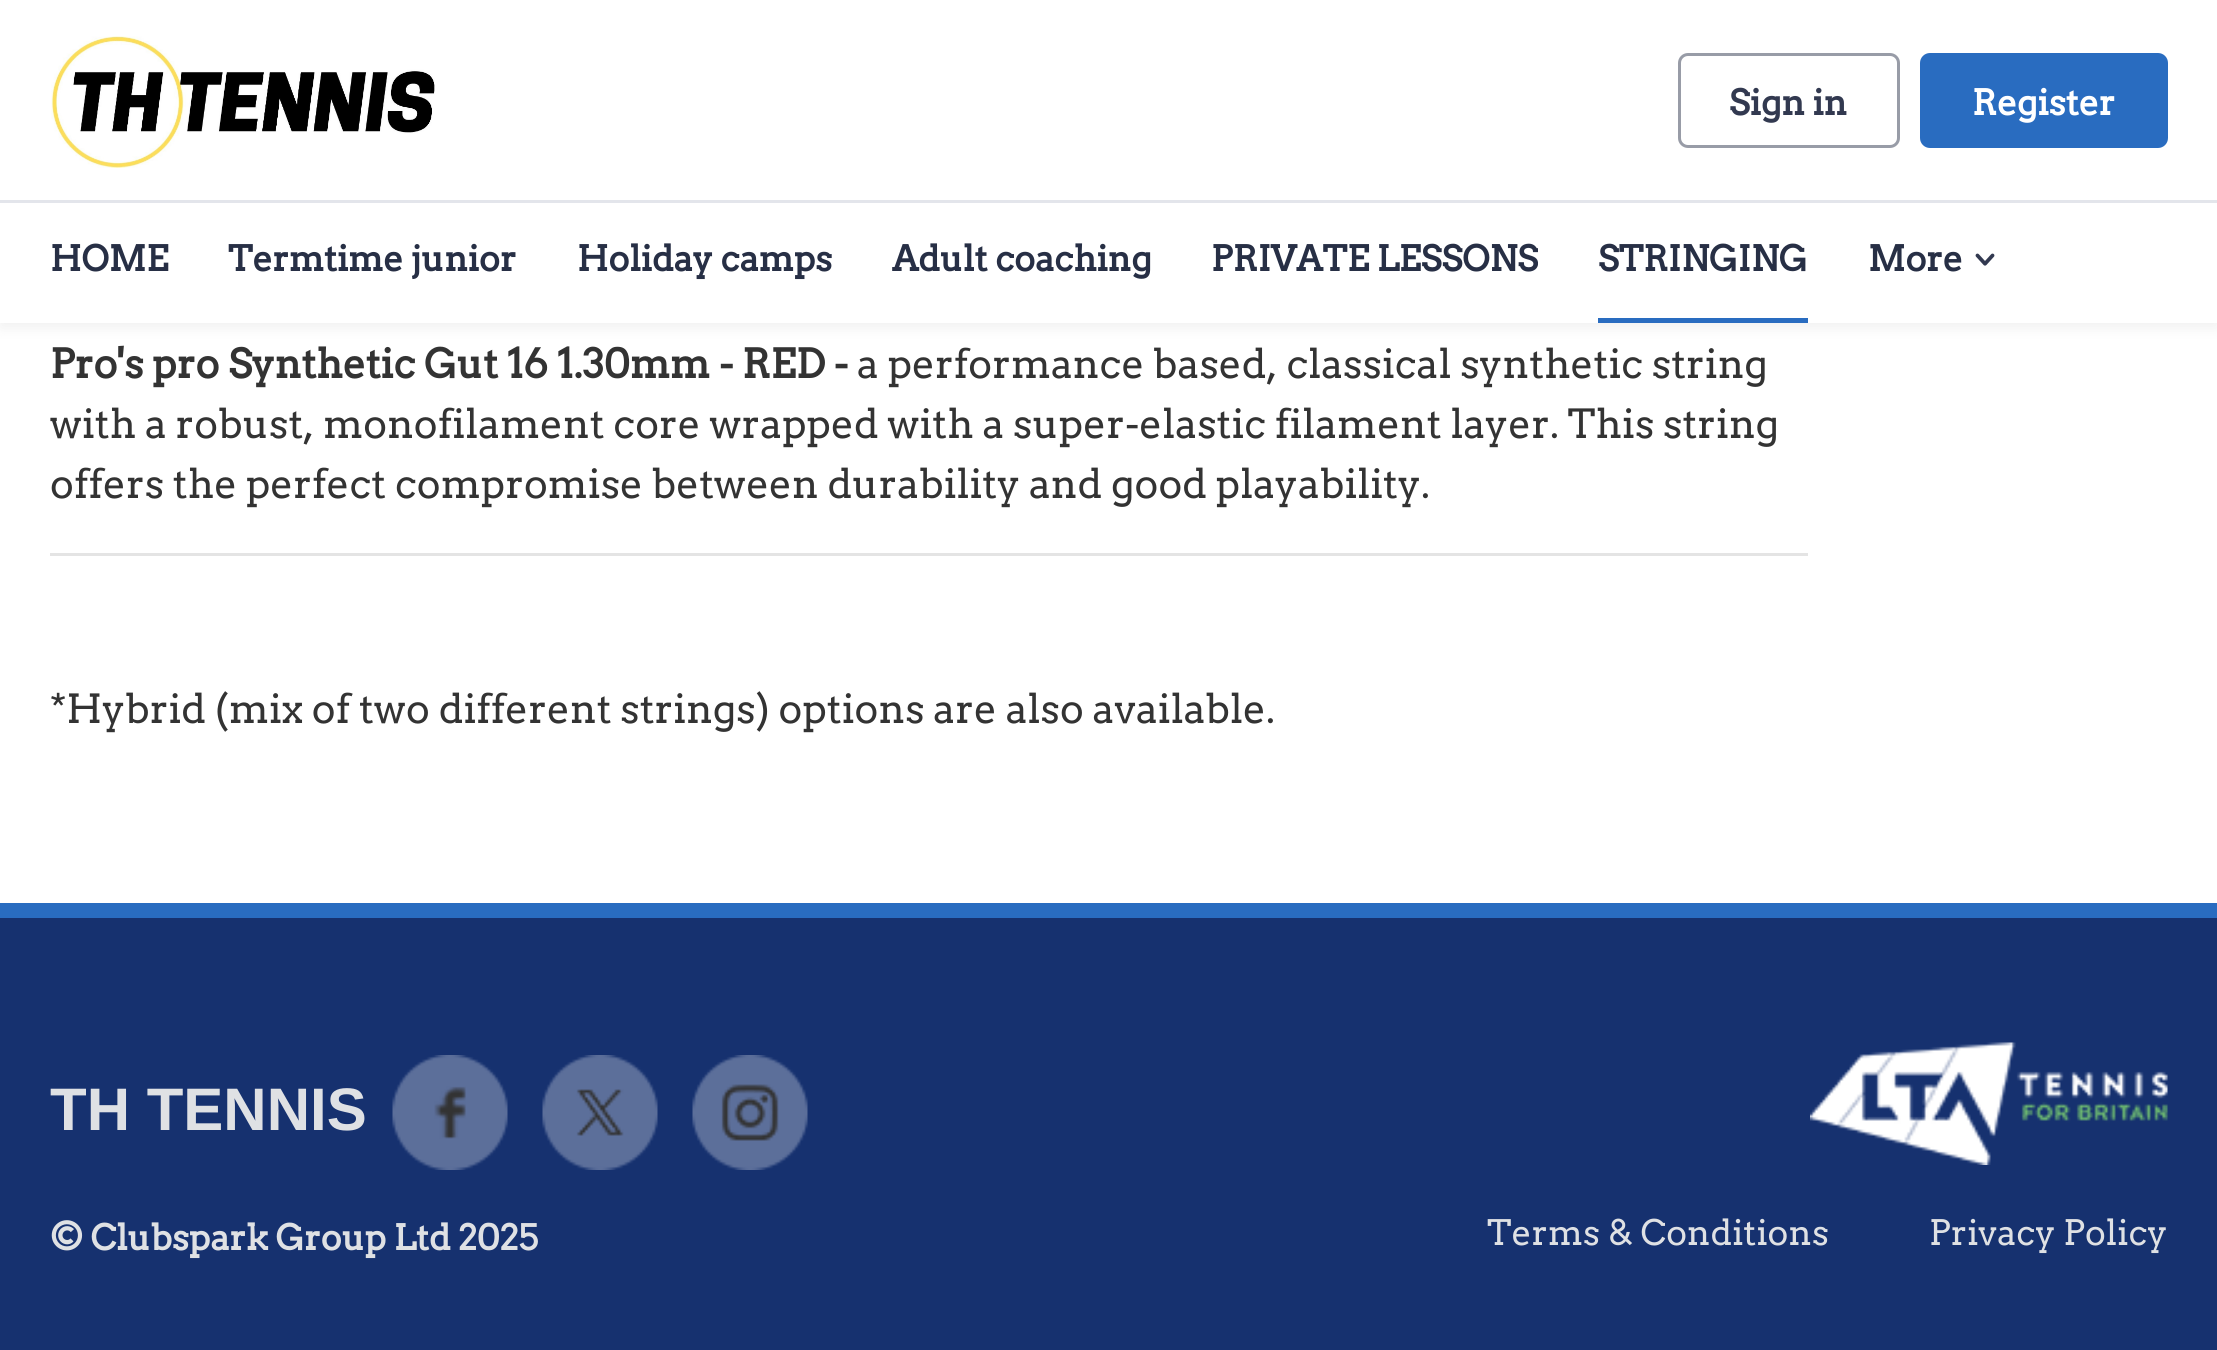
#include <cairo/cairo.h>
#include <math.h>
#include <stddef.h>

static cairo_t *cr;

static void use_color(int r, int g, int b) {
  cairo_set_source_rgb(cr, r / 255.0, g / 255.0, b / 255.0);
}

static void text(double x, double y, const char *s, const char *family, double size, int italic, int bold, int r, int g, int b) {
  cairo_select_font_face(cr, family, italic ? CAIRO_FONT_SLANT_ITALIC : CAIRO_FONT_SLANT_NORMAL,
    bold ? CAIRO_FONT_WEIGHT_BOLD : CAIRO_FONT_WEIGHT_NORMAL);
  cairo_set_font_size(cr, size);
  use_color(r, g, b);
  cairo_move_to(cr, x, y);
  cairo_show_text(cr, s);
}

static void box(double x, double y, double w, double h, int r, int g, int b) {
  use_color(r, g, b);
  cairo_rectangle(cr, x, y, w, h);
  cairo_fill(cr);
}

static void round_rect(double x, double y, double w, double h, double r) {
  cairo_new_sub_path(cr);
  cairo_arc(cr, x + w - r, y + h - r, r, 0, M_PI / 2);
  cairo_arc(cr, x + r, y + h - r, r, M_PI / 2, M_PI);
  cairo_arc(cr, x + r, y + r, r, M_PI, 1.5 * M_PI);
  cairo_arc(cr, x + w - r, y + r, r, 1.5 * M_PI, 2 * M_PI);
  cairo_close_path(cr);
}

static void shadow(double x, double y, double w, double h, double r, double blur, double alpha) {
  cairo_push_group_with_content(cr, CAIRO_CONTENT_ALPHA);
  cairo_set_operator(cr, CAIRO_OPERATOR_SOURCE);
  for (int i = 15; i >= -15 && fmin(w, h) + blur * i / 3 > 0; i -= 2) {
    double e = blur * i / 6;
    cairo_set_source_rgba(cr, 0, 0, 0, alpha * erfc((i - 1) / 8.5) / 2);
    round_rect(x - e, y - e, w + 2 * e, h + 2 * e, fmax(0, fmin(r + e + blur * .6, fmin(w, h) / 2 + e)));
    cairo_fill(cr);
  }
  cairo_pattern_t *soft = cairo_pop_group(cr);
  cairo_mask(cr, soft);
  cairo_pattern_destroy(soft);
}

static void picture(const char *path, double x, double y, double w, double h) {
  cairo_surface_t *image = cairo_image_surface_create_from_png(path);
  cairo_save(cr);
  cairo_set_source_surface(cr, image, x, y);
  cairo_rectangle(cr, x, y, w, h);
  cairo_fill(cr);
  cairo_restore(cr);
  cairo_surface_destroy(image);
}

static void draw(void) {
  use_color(255, 255, 255);
  cairo_paint(cr);
  use_color(0, 0, 0);
  shadow(0, 5, 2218, 323, 0, 7.5, 0.06);
  box(0, 0, 2217, 323, 255, 255, 255);
  picture("img_01.png", 51, 36, 384, 132);
  round_rect(1679.5, 54.5, 219, 92, 8.5);
  use_color(152, 156, 167);
  cairo_set_line_width(cr, 3);
  cairo_stroke(cr);
  use_color(41, 108, 192);
  round_rect(1921.5, 54.5, 245, 92, 8.5);
  cairo_fill_preserve(cr);
  cairo_stroke(cr);
  box(0, 200, 2217, 3, 227, 229, 235);
  box(1598, 318, 210, 5, 41, 108, 192);
  picture("img_02.png", 1975, 253, 20, 13);
  box(50, 553, 1758, 3, 228, 228, 228);
  box(0, 918, 2217, 432, 22, 49, 111);
  box(0, 903, 2217, 15, 41, 108, 192);
  picture("img_03.png", 392, 1055, 116, 115);
  picture("img_04.png", 542, 1055, 116, 115);
  picture("img_05.png", 692, 1055, 116, 115);
  picture("img_06.png", 1810, 1042, 358, 123);
  text(1729, 115, "Sign in", "Arvo", 35, 0, 1, 50, 57, 80);
  text(1972, 115, "Register", "Arvo", 35, 0, 1, 255, 255, 255);
  text(50, 271, "HOME", "Arvo", 35, 0, 1, 39, 47, 69);
  text(228, 271, "Termtime junior", "Arvo", 35, 0, 1, 39, 47, 69);
  text(577, 271, "Holiday camps", "Arvo", 35, 0, 1, 39, 47, 69);
  text(892, 271, "Adult coaching", "Arvo", 35, 0, 1, 39, 47, 69);
  text(1211, 271, "PRIVATE LESSONS", "Arvo", 35, 0, 1, 39, 47, 69);
  text(1598, 271, "STRINGING", "Arvo", 35, 0, 1, 39, 47, 69);
  text(1868, 271, "More", "Arvo", 35, 0, 1, 39, 47, 69);
  text(50, 378, "Pro's pro Synthetic Gut 16 1.30mm - RED -", "Arvo", 40, 0, 1, 51, 51, 51);
  text(857, 378, "a performance based, classical synthetic string", "Arvo", 40, 0, 0, 51, 51, 51);
  text(50, 438, "with a robust, monofilament core wrapped with a super-elastic filament layer. This string", "Arvo", 40, 0, 0, 51, 51, 51);
  text(50, 498, "offers the perfect compromise between durability and good playability.", "Arvo", 40, 0, 0, 51, 51, 51);
  text(50, 723, "*Hybrid (mix of two different strings) options are also available.", "Arvo", 40, 0, 0, 51, 51, 51);
  text(50, 1130, "TH TENNIS", "Liberation Sans", 60, 0, 1, 223, 225, 228);
  text(50, 1250, "© Clubspark Group Ltd 2025", "Arvo", 35, 0, 1, 223, 225, 228);
  text(1487, 1245, "Terms & Conditions", "Arvo", 35, 0, 0, 223, 225, 228);
  text(1929, 1245, "Privacy Policy", "Arvo", 35, 0, 0, 223, 225, 228);
}

int main(void) {
  cairo_surface_t *surface = cairo_image_surface_create(CAIRO_FORMAT_RGB24, 2217, 1350);
  cr = cairo_create(surface);
  cairo_font_options_t *options = cairo_font_options_create();
  cairo_font_options_set_hint_metrics(options, CAIRO_HINT_METRICS_OFF);
  cairo_font_options_set_hint_style(options, CAIRO_HINT_STYLE_NONE);
  cairo_set_font_options(cr, options);
  cairo_set_miter_limit(cr, 4);
  draw();
  cairo_surface_write_to_png(surface, "out.png");
  cairo_font_options_destroy(options);
  cairo_destroy(cr);
  cairo_surface_destroy(surface);
  return 0;
}
